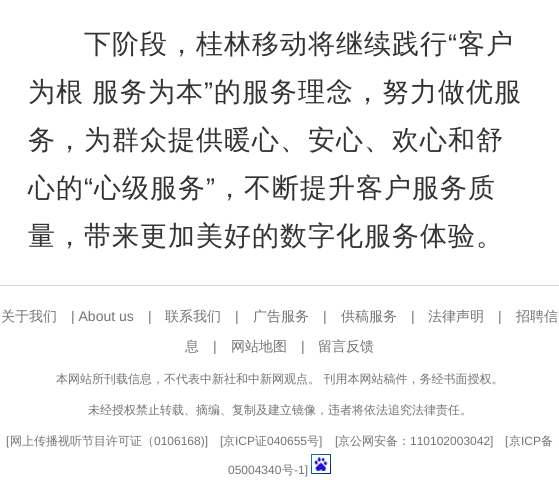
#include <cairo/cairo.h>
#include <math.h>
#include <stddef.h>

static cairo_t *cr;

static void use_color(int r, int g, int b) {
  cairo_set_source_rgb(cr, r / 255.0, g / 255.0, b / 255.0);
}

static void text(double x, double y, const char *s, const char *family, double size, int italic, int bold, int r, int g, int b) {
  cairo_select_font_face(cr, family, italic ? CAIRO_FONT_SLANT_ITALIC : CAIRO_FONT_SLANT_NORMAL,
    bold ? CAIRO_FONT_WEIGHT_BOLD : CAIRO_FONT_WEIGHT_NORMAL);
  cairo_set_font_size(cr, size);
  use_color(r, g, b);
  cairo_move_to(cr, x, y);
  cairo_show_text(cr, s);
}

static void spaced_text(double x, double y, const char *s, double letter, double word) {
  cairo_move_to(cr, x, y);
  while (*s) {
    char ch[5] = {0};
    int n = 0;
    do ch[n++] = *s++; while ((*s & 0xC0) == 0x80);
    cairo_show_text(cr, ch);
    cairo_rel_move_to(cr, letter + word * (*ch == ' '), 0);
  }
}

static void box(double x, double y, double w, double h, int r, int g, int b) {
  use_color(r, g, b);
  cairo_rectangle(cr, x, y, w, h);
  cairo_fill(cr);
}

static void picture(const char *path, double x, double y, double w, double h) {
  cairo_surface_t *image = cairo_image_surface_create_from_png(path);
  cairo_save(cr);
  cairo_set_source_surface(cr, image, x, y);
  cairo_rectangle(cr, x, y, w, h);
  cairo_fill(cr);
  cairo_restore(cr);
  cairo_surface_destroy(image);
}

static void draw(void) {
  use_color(255, 255, 255);
  cairo_paint(cr);
  box(0, 285, 559, 1, 215, 215, 215);
  picture("img_01.png", 311, 454, 20, 20);
  cairo_select_font_face(cr, "WenQuanYi Zen Hei Medium", CAIRO_FONT_SLANT_NORMAL, CAIRO_FONT_WEIGHT_NORMAL);
  cairo_set_font_size(cr, 27);
  use_color(51, 51, 51);
  spaced_text(84, 53, "下阶段，桂林移动将继续践行", 1, 0);
  cairo_select_font_face(cr, "Liberation Sans", CAIRO_FONT_SLANT_NORMAL, CAIRO_FONT_WEIGHT_NORMAL);
  spaced_text(448, 53, "“", 1, 0);
  cairo_select_font_face(cr, "WenQuanYi Zen Hei Medium", CAIRO_FONT_SLANT_NORMAL, CAIRO_FONT_WEIGHT_NORMAL);
  spaced_text(458, 53, "客户", 1, 0);
  spaced_text(28, 101, "为根 服务为本", 1, -1);
  cairo_select_font_face(cr, "Liberation Sans", CAIRO_FONT_SLANT_NORMAL, CAIRO_FONT_WEIGHT_NORMAL);
  spaced_text(204, 101, "”", 1, 0);
  cairo_select_font_face(cr, "WenQuanYi Zen Hei Medium", CAIRO_FONT_SLANT_NORMAL, CAIRO_FONT_WEIGHT_NORMAL);
  spaced_text(214, 101, "的服务理念，努力做优服", 1, 0);
  spaced_text(28, 149, "务，为群众提供暖心、安心、欢心和舒", 1, 0);
  spaced_text(28, 197, "心的", 1, 0);
  cairo_select_font_face(cr, "Liberation Sans", CAIRO_FONT_SLANT_NORMAL, CAIRO_FONT_WEIGHT_NORMAL);
  spaced_text(84, 197, "“", 1, 0);
  cairo_select_font_face(cr, "WenQuanYi Zen Hei Medium", CAIRO_FONT_SLANT_NORMAL, CAIRO_FONT_WEIGHT_NORMAL);
  spaced_text(94, 197, "心级服务", 1, 0);
  cairo_select_font_face(cr, "Liberation Sans", CAIRO_FONT_SLANT_NORMAL, CAIRO_FONT_WEIGHT_NORMAL);
  spaced_text(206, 197, "”", 1, 0);
  cairo_select_font_face(cr, "WenQuanYi Zen Hei Medium", CAIRO_FONT_SLANT_NORMAL, CAIRO_FONT_WEIGHT_NORMAL);
  spaced_text(216, 197, "，不断提升客户服务质", 1, 0);
  spaced_text(28, 245, "量，带来更加美好的数字化服务体验。", 1, 0);
  text(1, 321, "关于我们", "WenQuanYi Zen Hei Medium", 14, 0, 0, 115, 115, 115);
  text(71, 321, "| About us", "Liberation Sans", 14, 0, 0, 115, 115, 115);
  text(148, 321, "|", "Liberation Sans", 14, 0, 0, 115, 115, 115);
  text(165, 321, "联系我们", "WenQuanYi Zen Hei Medium", 14, 0, 0, 115, 115, 115);
  text(235, 321, "|", "Liberation Sans", 14, 0, 0, 115, 115, 115);
  text(253, 321, "广告服务", "WenQuanYi Zen Hei Medium", 14, 0, 0, 115, 115, 115);
  text(323, 321, "|", "Liberation Sans", 14, 0, 0, 115, 115, 115);
  text(341, 321, "供稿服务", "WenQuanYi Zen Hei Medium", 14, 0, 0, 115, 115, 115);
  text(411, 321, "|", "Liberation Sans", 14, 0, 0, 115, 115, 115);
  text(428, 321, "法律声明", "WenQuanYi Zen Hei Medium", 14, 0, 0, 115, 115, 115);
  text(498, 321, "|", "Liberation Sans", 14, 0, 0, 115, 115, 115);
  text(516, 321, "招聘信", "WenQuanYi Zen Hei Medium", 14, 0, 0, 115, 115, 115);
  text(185, 351, "息", "WenQuanYi Zen Hei Medium", 14, 0, 0, 115, 115, 115);
  text(213, 351, "|", "Liberation Sans", 14, 0, 0, 115, 115, 115);
  text(231, 351, "网站地图", "WenQuanYi Zen Hei Medium", 14, 0, 0, 115, 115, 115);
  text(301, 351, "|", "Liberation Sans", 14, 0, 0, 115, 115, 115);
  text(318, 351, "留言反馈", "WenQuanYi Zen Hei Medium", 14, 0, 0, 115, 115, 115);
  text(56, 383, "本网站所刊载信息，不代表中新社和中新网观点。 刊用本网站稿件，务经书面授权。", "WenQuanYi Zen Hei Medium", 12, 0, 0, 115, 115, 115);
  text(88, 414, "未经授权禁止转载、摘编、复制及建立镜像，违者将依法追究法律责任。", "WenQuanYi Zen Hei Medium", 12, 0, 0, 115, 115, 115);
  text(6, 445, "[", "Liberation Sans", 12, 0, 0, 115, 115, 115);
  text(10, 445, "网上传播视听节目许可证（", "WenQuanYi Zen Hei Medium", 12, 0, 0, 115, 115, 115);
  text(154, 445, "0106168)]", "Liberation Sans", 12, 0, 0, 115, 115, 115);
  text(220, 445, "[", "Liberation Sans", 12, 0, 0, 115, 115, 115);
  text(223, 445, "京", "WenQuanYi Zen Hei Medium", 12, 0, 0, 115, 115, 115);
  text(235, 445, "ICP", "Liberation Sans", 12, 0, 0, 115, 115, 115);
  text(255, 445, "证", "WenQuanYi Zen Hei Medium", 12, 0, 0, 115, 115, 115);
  text(267, 445, "040655", "Liberation Sans", 12, 0, 0, 115, 115, 115);
  text(307, 445, "号", "WenQuanYi Zen Hei Medium", 12, 0, 0, 115, 115, 115);
  text(319, 445, "]", "Liberation Sans", 12, 0, 0, 115, 115, 115);
  text(335, 445, "[", "Liberation Sans", 12, 0, 0, 115, 115, 115);
  text(338, 445, "京公网安备：", "WenQuanYi Zen Hei Medium", 12, 0, 0, 115, 115, 115);
  text(410, 445, "110102003042]", "Liberation Sans", 12, 0, 0, 115, 115, 115);
  text(505, 445, "[", "Liberation Sans", 12, 0, 0, 115, 115, 115);
  text(509, 445, "京", "WenQuanYi Zen Hei Medium", 12, 0, 0, 115, 115, 115);
  text(521, 445, "ICP", "Liberation Sans", 12, 0, 0, 115, 115, 115);
  text(541, 445, "备", "WenQuanYi Zen Hei Medium", 12, 0, 0, 115, 115, 115);
  text(228, 474, "05004340", "Liberation Sans", 12, 0, 0, 115, 115, 115);
  text(282, 474, "号", "WenQuanYi Zen Hei Medium", 12, 0, 0, 115, 115, 115);
  text(294, 474, "-1]", "Liberation Sans", 12, 0, 0, 115, 115, 115);
}

int main(void) {
  cairo_surface_t *surface = cairo_image_surface_create(CAIRO_FORMAT_RGB24, 559, 498);
  cr = cairo_create(surface);
  cairo_font_options_t *options = cairo_font_options_create();
  cairo_font_options_set_hint_metrics(options, CAIRO_HINT_METRICS_OFF);
  cairo_font_options_set_hint_style(options, CAIRO_HINT_STYLE_NONE);
  cairo_set_font_options(cr, options);
  cairo_set_miter_limit(cr, 4);
  draw();
  cairo_surface_write_to_png(surface, "out.png");
  cairo_font_options_destroy(options);
  cairo_destroy(cr);
  cairo_surface_destroy(surface);
  return 0;
}
